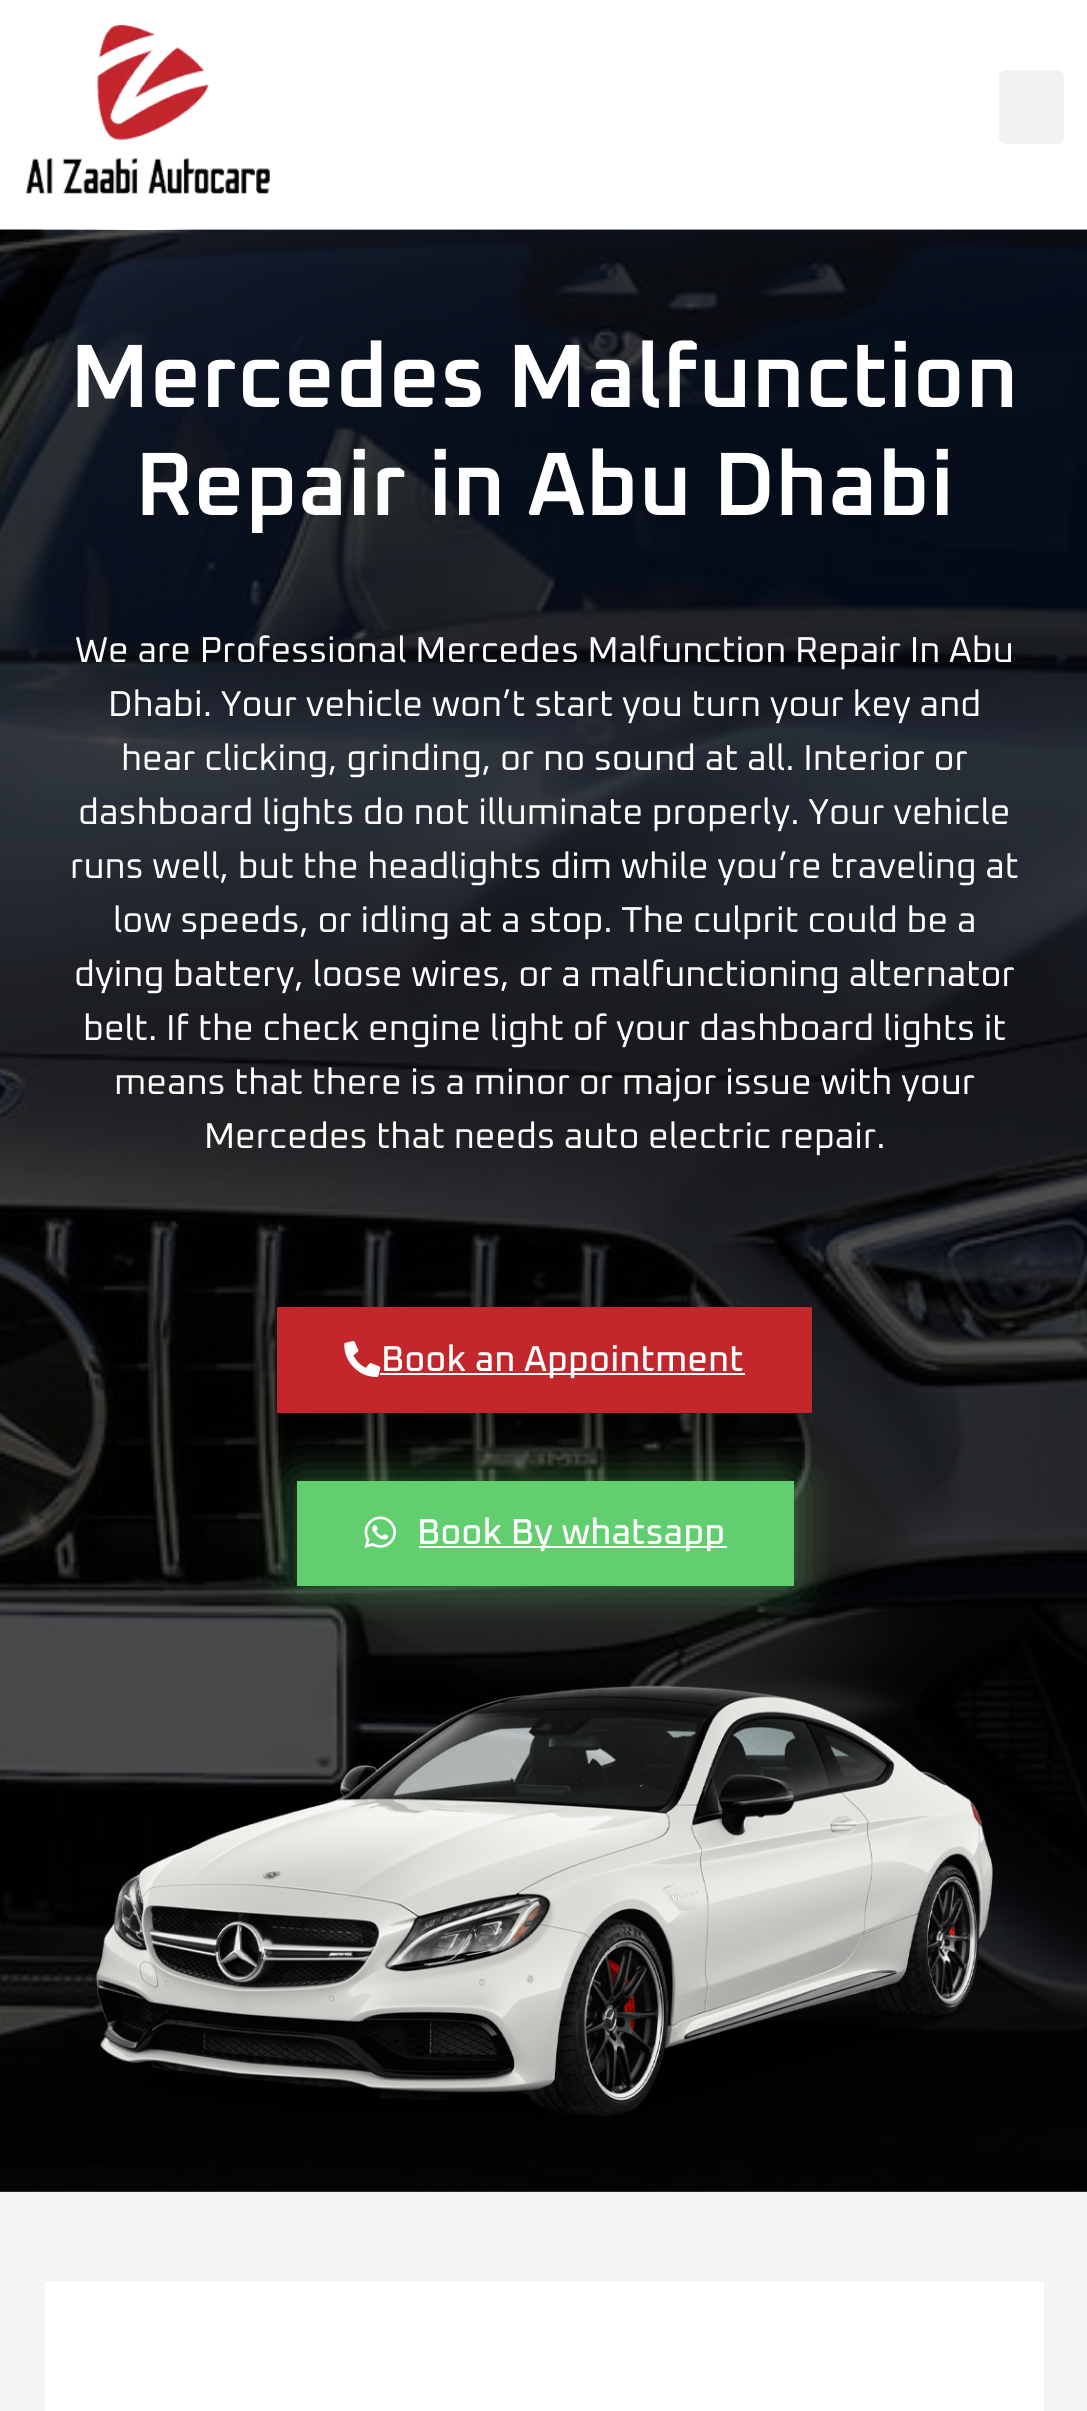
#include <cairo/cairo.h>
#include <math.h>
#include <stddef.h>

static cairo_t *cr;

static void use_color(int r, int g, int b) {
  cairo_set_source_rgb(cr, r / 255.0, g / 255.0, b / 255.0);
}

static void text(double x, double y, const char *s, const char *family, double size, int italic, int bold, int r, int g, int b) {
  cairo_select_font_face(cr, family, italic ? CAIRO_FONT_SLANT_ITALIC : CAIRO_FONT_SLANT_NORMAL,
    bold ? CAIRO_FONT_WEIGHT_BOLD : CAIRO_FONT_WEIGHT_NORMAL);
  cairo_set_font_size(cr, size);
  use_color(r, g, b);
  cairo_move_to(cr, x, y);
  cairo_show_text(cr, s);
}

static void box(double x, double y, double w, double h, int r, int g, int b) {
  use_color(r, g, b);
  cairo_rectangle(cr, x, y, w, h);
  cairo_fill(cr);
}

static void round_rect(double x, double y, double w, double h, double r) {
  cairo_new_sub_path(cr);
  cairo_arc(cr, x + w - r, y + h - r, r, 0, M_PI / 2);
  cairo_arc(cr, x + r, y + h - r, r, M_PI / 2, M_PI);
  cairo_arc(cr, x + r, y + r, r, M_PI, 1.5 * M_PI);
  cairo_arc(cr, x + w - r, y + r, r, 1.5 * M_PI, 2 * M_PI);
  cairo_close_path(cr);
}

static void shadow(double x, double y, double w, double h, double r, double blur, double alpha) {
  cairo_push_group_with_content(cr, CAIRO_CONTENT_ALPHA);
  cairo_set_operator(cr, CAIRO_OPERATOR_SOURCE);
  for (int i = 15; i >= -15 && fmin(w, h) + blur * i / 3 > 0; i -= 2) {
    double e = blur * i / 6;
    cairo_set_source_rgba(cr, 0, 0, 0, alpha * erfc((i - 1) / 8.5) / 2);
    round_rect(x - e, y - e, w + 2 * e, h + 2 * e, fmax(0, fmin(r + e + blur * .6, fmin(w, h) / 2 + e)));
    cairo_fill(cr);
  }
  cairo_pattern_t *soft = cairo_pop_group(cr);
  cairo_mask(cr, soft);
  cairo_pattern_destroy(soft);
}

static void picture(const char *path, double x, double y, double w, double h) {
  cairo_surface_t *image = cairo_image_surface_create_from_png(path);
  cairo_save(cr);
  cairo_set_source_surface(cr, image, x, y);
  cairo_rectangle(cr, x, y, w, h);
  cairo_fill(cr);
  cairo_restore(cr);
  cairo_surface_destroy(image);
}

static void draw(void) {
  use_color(245, 245, 245);
  cairo_paint(cr);
  box(0, 2191, 1087, 1, 74, 74, 74);
  box(0, 0, 1087, 230, 255, 255, 255);
  picture("img_01.png", 26, 24, 245, 170);
  use_color(242, 242, 242);
  round_rect(999, 70, 65, 74, 7);
  cairo_fill(cr);
  picture("img_02.png", 0, 229, 1087, 1963);
  box(277, 1307, 535, 106, 196, 39, 43);
  picture("img_03.png", 344, 1341, 37, 36);
  box(380, 1373, 365, 2, 255, 255, 255);
  use_color(97, 206, 112);
  shadow(297, 1481, 497, 105, 0, 22.5, 0.48);
  box(297, 1481, 497, 105, 97, 206, 112);
  picture("img_04.png", 364, 1516, 32, 32);
  box(419, 1546, 308, 2, 255, 255, 255);
  picture("img_05.png", 95, 1685, 898, 431);
  box(45, 2282, 999, 129, 255, 255, 255);
  text(70, 407, "Mercedes Malfunction", "Oxanium SemiBold", 90, 0, 0, 255, 255, 255);
  text(135, 515, "Repair in Abu Dhabi", "Oxanium SemiBold", 90, 0, 0, 255, 255, 255);
  text(75, 662, "We are Professional Mercedes Malfunction Repair In Abu", "Oxanium", 36, 0, 0, 255, 255, 255);
  text(108, 716, "Dhabi. Your vehicle won’t start you turn your key and", "Oxanium", 36, 0, 0, 255, 255, 255);
  text(121, 770, "hear clicking, grinding, or no sound at all. Interior or", "Oxanium", 36, 0, 0, 255, 255, 255);
  text(78, 824, "dashboard lights do not illuminate properly. Your vehicle", "Oxanium", 36, 0, 0, 255, 255, 255);
  text(70, 878, "runs well, but the headlights dim while you’re traveling at", "Oxanium", 36, 0, 0, 255, 255, 255);
  text(113, 932, "low speeds, or idling at a stop. The culprit could be a", "Oxanium", 36, 0, 0, 255, 255, 255);
  text(74, 986, "dying battery, loose wires, or a malfunctioning alternator", "Oxanium", 36, 0, 0, 255, 255, 255);
  text(83, 1040, "belt. If the check engine light of your dashboard lights it", "Oxanium", 36, 0, 0, 255, 255, 255);
  text(114, 1094, "means that there is a minor or major issue with your", "Oxanium", 36, 0, 0, 255, 255, 255);
  text(204, 1148, "Mercedes that needs auto electric repair.", "Oxanium", 36, 0, 0, 255, 255, 255);
  text(381, 1371, "Book an Appointment", "Oxanium Medium", 36, 0, 0, 255, 255, 255);
  text(417, 1544, "Book By whatsapp", "Oxanium Medium", 36, 0, 0, 255, 255, 255);
}

int main(void) {
  cairo_surface_t *surface = cairo_image_surface_create(CAIRO_FORMAT_RGB24, 1087, 2411);
  cr = cairo_create(surface);
  cairo_font_options_t *options = cairo_font_options_create();
  cairo_font_options_set_hint_metrics(options, CAIRO_HINT_METRICS_OFF);
  cairo_font_options_set_hint_style(options, CAIRO_HINT_STYLE_NONE);
  cairo_set_font_options(cr, options);
  cairo_set_miter_limit(cr, 4);
  draw();
  cairo_surface_write_to_png(surface, "out.png");
  cairo_font_options_destroy(options);
  cairo_destroy(cr);
  cairo_surface_destroy(surface);
  return 0;
}
